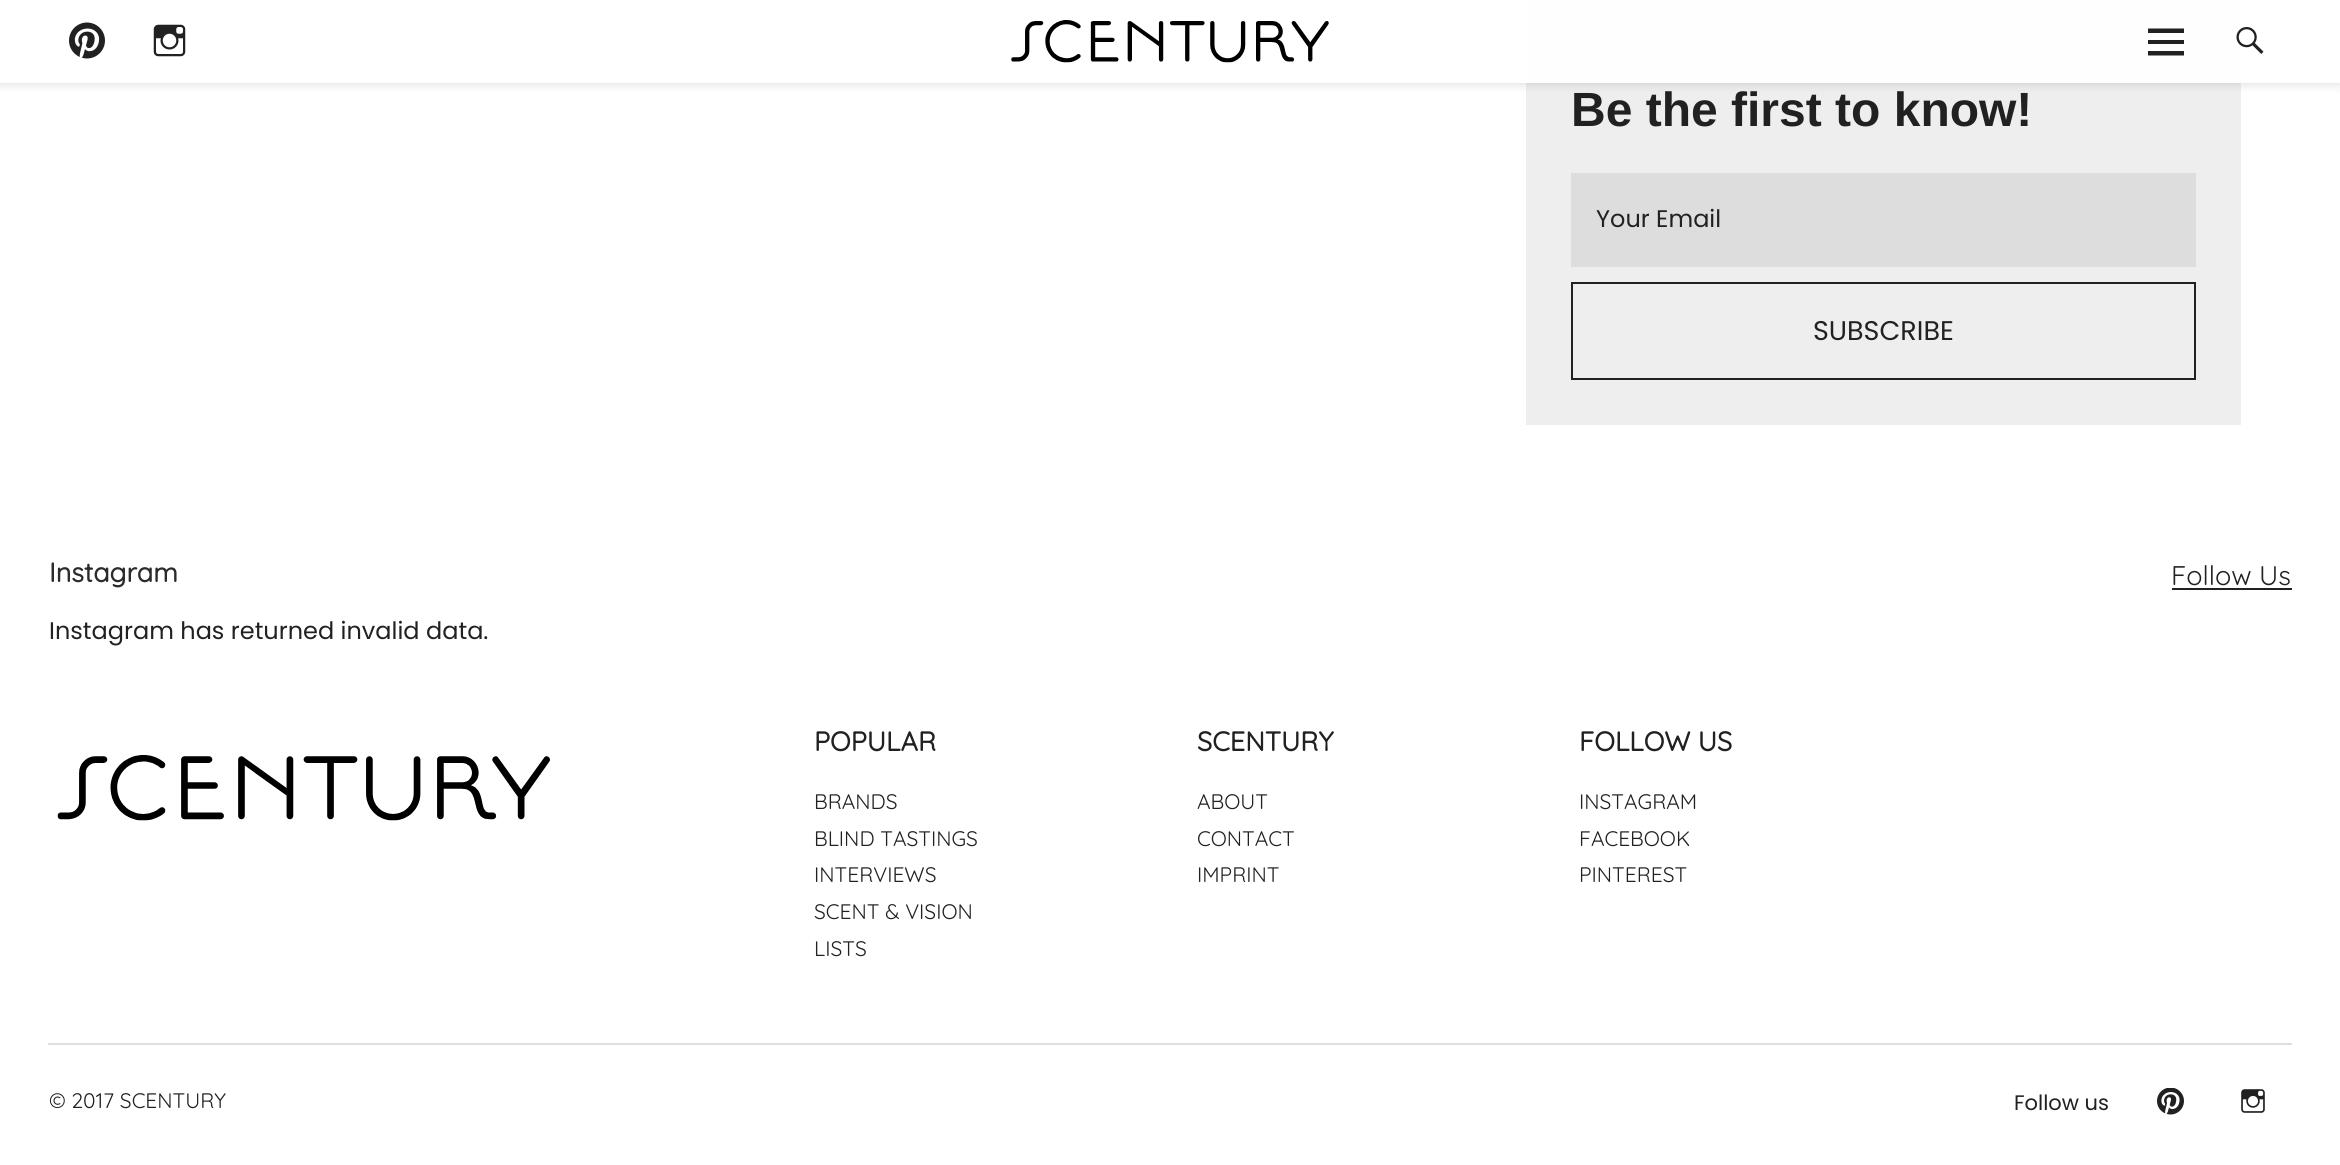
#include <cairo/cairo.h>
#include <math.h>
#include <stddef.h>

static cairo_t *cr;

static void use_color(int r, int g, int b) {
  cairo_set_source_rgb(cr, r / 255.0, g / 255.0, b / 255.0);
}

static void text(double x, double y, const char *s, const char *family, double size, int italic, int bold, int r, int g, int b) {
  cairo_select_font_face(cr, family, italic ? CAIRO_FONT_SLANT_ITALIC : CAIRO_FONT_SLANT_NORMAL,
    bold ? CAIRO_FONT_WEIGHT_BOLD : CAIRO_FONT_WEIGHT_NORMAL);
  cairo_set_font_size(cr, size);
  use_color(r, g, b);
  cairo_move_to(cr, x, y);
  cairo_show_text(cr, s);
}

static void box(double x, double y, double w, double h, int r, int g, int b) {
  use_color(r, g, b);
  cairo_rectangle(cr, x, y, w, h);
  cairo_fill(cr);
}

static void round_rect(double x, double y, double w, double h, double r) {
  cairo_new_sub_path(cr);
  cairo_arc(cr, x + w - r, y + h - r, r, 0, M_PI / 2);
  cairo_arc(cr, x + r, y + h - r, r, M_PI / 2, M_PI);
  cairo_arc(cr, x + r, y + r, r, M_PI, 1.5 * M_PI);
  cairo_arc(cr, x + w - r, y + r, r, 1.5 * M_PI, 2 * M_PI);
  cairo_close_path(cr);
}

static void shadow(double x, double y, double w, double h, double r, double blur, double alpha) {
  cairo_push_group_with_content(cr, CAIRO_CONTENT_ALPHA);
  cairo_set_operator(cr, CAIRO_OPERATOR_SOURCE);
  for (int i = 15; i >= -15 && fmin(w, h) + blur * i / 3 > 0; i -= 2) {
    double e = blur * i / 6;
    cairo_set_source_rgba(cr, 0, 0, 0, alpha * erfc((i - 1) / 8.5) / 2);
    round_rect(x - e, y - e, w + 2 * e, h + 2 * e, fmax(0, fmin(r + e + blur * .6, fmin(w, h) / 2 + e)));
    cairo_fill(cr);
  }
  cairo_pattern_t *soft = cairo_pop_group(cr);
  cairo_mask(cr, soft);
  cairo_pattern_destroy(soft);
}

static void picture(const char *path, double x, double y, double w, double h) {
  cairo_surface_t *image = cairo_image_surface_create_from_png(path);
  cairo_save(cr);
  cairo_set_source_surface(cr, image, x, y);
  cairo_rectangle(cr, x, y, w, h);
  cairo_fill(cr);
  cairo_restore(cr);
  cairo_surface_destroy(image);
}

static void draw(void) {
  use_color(255, 255, 255);
  cairo_paint(cr);
  box(1526, 0, 715, 425, 238, 238, 238);
  cairo_save(cr);
  cairo_set_fill_rule(cr, CAIRO_FILL_RULE_EVEN_ODD);
  cairo_new_path(cr);
  cairo_move_to(cr, 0, 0);
  cairo_line_to(cr, 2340, 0);
  cairo_line_to(cr, 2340, 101);
  cairo_line_to(cr, 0, 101);
  cairo_close_path(cr);
  cairo_move_to(cr, 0, 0);
  cairo_line_to(cr, 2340, 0);
  cairo_line_to(cr, 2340, 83);
  cairo_line_to(cr, 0, 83);
  cairo_close_path(cr);
  cairo_clip(cr);
  use_color(0, 0, 0);
  shadow(0, 3, 2340, 83, 0, 4.5, 0.1);
  cairo_restore(cr);
  cairo_set_source_rgba(cr, 1, 1, 1, 0.96);
  cairo_rectangle(cr, 0, 0, 2340, 83);
  cairo_fill(cr);
  picture("img_01.png", 69, 22, 36, 37);
  picture("img_02.png", 153, 24, 33, 33);
  picture("img_03.png", 1011, 20, 318, 43);
  use_color(33, 33, 33);
  cairo_new_path(cr);
  cairo_move_to(cr, 2148, 55.5);
  cairo_line_to(cr, 2148, 51);
  cairo_line_to(cr, 2184, 51);
  cairo_line_to(cr, 2184, 55.5);
  cairo_close_path(cr);
  cairo_move_to(cr, 2148, 28.5);
  cairo_line_to(cr, 2184, 28.5);
  cairo_line_to(cr, 2184, 33);
  cairo_line_to(cr, 2148, 33);
  cairo_close_path(cr);
  cairo_move_to(cr, 2148, 44);
  cairo_line_to(cr, 2148, 40);
  cairo_line_to(cr, 2184, 40);
  cairo_line_to(cr, 2184, 44);
  cairo_close_path(cr);
  cairo_fill(cr);
  picture("img_04.png", 2236, 27, 28, 27);
  box(1571, 173, 625, 94, 221, 221, 221);
  cairo_rectangle(cr, 1572, 283, 623, 96);
  use_color(33, 33, 33);
  cairo_stroke(cr);
  box(2172, 588, 120, 2, 33, 33, 33);
  box(48, 1043, 2244, 2, 222, 222, 222);
  picture("img_05.png", 57, 755, 493, 66);
  picture("img_06.png", 2157, 1088, 27, 27);
  picture("img_07.png", 2241, 1089, 24, 24);
  text(1571, 126, "Be the first to know!", "Liberation Sans", 48, 0, 1, 33, 33, 33);
  text(1596, 227, "Your Email", "Poppins", 24, 0, 0, 33, 33, 33);
  text(1813, 340, "SUBSCRIBE", "Poppins", 27, 0, 0, 33, 33, 33);
  text(49, 582, "Instagram", "Quicksand", 27, 0, 1, 43, 43, 43);
  text(2171, 585, "Follow Us", "Quicksand Light", 27, 0, 0, 33, 33, 33);
  text(49, 639, "Instagram has returned invalid data.", "Poppins", 24, 0, 0, 33, 33, 33);
  text(814, 751, "POPULAR", "Quicksand", 27, 0, 1, 33, 33, 33);
  text(814, 809, "BRANDS", "Quicksand Light", 21, 0, 0, 33, 33, 33);
  text(814, 846, "BLIND TASTINGS", "Quicksand Light", 21, 0, 0, 33, 33, 33);
  text(814, 882, "INTERVIEWS", "Quicksand Light", 21, 0, 0, 33, 33, 33);
  text(814, 919, "SCENT & VISION", "Quicksand Light", 21, 0, 0, 33, 33, 33);
  text(814, 956, "LISTS", "Quicksand Light", 21, 0, 0, 33, 33, 33);
  text(1197, 751, "SCENTURY", "Quicksand", 27, 0, 1, 33, 33, 33);
  text(1197, 809, "ABOUT", "Quicksand Light", 21, 0, 0, 33, 33, 33);
  text(1197, 846, "CONTACT", "Quicksand Light", 21, 0, 0, 33, 33, 33);
  text(1197, 882, "IMPRINT", "Quicksand Light", 21, 0, 0, 33, 33, 33);
  text(1579, 751, "FOLLOW US", "Quicksand", 27, 0, 1, 33, 33, 33);
  text(1579, 809, "INSTAGRAM", "Quicksand Light", 21, 0, 0, 33, 33, 33);
  text(1579, 846, "FACEBOOK", "Quicksand Light", 21, 0, 0, 33, 33, 33);
  text(1579, 882, "PINTEREST", "Quicksand Light", 21, 0, 0, 33, 33, 33);
  text(49, 1108, "© 2017 SCENTURY", "Quicksand Light", 21, 0, 0, 33, 33, 33);
  text(2014, 1110, "Follow us", "Poppins", 21, 0, 0, 33, 33, 33);
}

int main(void) {
  cairo_surface_t *surface = cairo_image_surface_create(CAIRO_FORMAT_RGB24, 2340, 1165);
  cr = cairo_create(surface);
  cairo_font_options_t *options = cairo_font_options_create();
  cairo_font_options_set_hint_metrics(options, CAIRO_HINT_METRICS_OFF);
  cairo_font_options_set_hint_style(options, CAIRO_HINT_STYLE_NONE);
  cairo_set_font_options(cr, options);
  cairo_set_miter_limit(cr, 4);
  draw();
  cairo_surface_write_to_png(surface, "out.png");
  cairo_font_options_destroy(options);
  cairo_destroy(cr);
  cairo_surface_destroy(surface);
  return 0;
}
